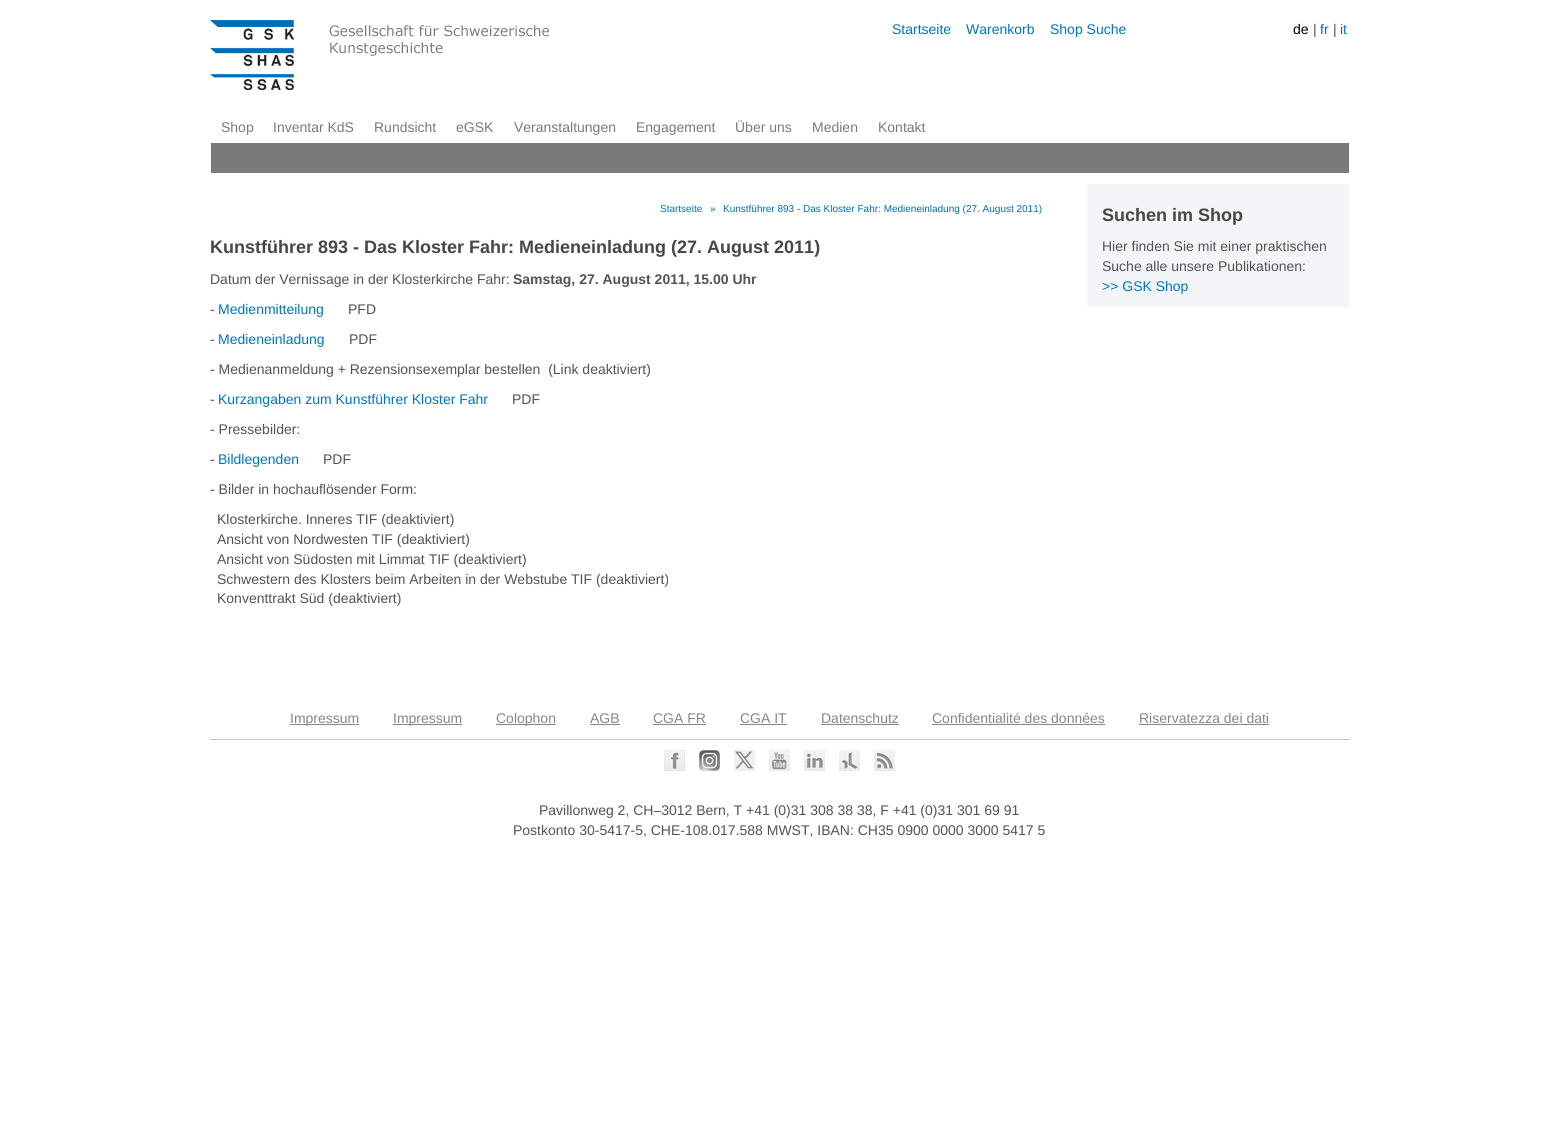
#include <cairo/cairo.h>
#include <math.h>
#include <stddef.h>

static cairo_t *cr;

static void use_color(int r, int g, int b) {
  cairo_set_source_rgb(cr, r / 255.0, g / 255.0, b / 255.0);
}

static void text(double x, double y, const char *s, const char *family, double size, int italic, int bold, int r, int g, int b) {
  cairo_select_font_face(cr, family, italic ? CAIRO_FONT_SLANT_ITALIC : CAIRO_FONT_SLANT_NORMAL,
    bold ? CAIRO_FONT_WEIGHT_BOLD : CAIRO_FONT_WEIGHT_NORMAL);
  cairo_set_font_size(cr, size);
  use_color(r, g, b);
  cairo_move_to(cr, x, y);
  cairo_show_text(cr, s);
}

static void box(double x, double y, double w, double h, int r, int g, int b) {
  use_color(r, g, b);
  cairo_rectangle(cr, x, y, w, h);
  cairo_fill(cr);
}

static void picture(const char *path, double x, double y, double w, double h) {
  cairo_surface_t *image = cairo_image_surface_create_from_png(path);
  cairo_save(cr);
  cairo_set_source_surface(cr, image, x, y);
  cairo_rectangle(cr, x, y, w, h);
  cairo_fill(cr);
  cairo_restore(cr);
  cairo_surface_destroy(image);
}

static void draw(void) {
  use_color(255, 255, 255);
  cairo_paint(cr);
  picture("img_01.png", 210, 20, 339, 70);
  box(211, 143, 1138, 30, 123, 122, 122);
  box(1087, 184, 263, 123, 243, 245, 248);
  box(210, 739, 1140, 1, 202, 202, 202);
  box(290, 724, 69, 1, 134, 134, 134);
  box(393, 724, 69, 1, 134, 134, 134);
  box(496, 724, 60, 1, 134, 134, 134);
  box(590, 724, 30, 1, 134, 134, 134);
  box(653, 724, 53, 1, 134, 134, 134);
  box(740, 724, 47, 1, 134, 134, 134);
  box(821, 724, 78, 1, 134, 134, 134);
  box(932, 724, 173, 1, 134, 134, 134);
  box(1139, 724, 130, 1, 134, 134, 134);
  picture("img_02.png", 664, 750, 21, 21);
  picture("img_03.png", 699, 750, 21, 21);
  picture("img_04.png", 734, 750, 21, 21);
  picture("img_05.png", 769, 750, 21, 21);
  picture("img_06.png", 804, 750, 21, 21);
  picture("img_07.png", 839, 750, 21, 21);
  picture("img_08.png", 874, 750, 21, 21);
  text(892, 34, "Startseite", "Liberation Sans", 14, 0, 0, 0, 117, 191);
  text(966, 34, "Warenkorb", "Liberation Sans", 14, 0, 0, 0, 117, 191);
  text(1050, 34, "Shop Suche", "Liberation Sans", 14, 0, 0, 0, 117, 191);
  text(1293, 34, "de", "Liberation Sans", 14, 0, 0, 0, 0, 0);
  text(1313, 34, "|", "Liberation Sans", 14, 0, 0, 83, 83, 83);
  text(1320, 34, "fr", "Liberation Sans", 14, 0, 0, 0, 117, 191);
  text(1333, 34, "|", "Liberation Sans", 14, 0, 0, 83, 83, 83);
  text(1340, 34, "it", "Liberation Sans", 14, 0, 0, 0, 117, 191);
  text(221, 132, "Shop", "Liberation Sans", 14, 0, 0, 123, 122, 122);
  text(273, 132, "Inventar KdS", "Liberation Sans", 14, 0, 0, 123, 122, 122);
  text(374, 132, "Rundsicht", "Liberation Sans", 14, 0, 0, 123, 122, 122);
  text(456, 132, "eGSK", "Liberation Sans", 14, 0, 0, 123, 122, 122);
  text(514, 132, "Veranstaltungen", "Liberation Sans", 14, 0, 0, 123, 122, 122);
  text(636, 132, "Engagement", "Liberation Sans", 14, 0, 0, 123, 122, 122);
  text(735, 132, "Über uns", "Liberation Sans", 14, 0, 0, 123, 122, 122);
  text(812, 132, "Medien", "Liberation Sans", 14, 0, 0, 123, 122, 122);
  text(878, 132, "Kontakt", "Liberation Sans", 14, 0, 0, 123, 122, 122);
  text(660, 212, "Startseite", "Liberation Sans", 10, 0, 0, 0, 117, 191);
  text(710, 212, "»", "Liberation Sans", 10, 0, 0, 1, 109, 182);
  text(723, 212, "Kunstführer 893 - Das Kloster Fahr: Medieneinladung (27. August 2011)", "Liberation Sans", 10, 0, 0, 1, 109, 182);
  text(210, 253, "Kunstführer 893 - Das Kloster Fahr: Medieneinladung (27. August 2011)", "Liberation Sans", 18, 0, 1, 71, 71, 71);
  text(210, 284, "Datum der Vernissage in der Klosterkirche Fahr:", "Liberation Sans", 14, 0, 0, 83, 83, 83);
  text(513, 284, "Samstag, 27. August 2011, 15.00 Uhr", "Liberation Sans", 14, 0, 1, 83, 83, 83);
  text(210, 314, "-", "Liberation Sans", 14, 0, 0, 83, 83, 83);
  text(218, 314, "Medienmitteilung", "Liberation Sans", 14, 0, 0, 0, 117, 191);
  text(348, 314, "PFD", "Liberation Sans", 14, 0, 0, 83, 83, 83);
  text(210, 344, "-", "Liberation Sans", 14, 0, 0, 83, 83, 83);
  text(218, 344, "Medieneinladung", "Liberation Sans", 14, 0, 0, 0, 117, 191);
  text(349, 344, "PDF", "Liberation Sans", 14, 0, 0, 83, 83, 83);
  text(210, 374, "- Medienanmeldung + Rezensionsexemplar bestellen  (Link deaktiviert)", "Liberation Sans", 14, 0, 0, 83, 83, 83);
  text(210, 404, "-", "Liberation Sans", 14, 0, 0, 83, 83, 83);
  text(218, 404, "Kurzangaben zum Kunstführer Kloster Fahr", "Liberation Sans", 14, 0, 0, 0, 117, 191);
  text(512, 404, "PDF", "Liberation Sans", 14, 0, 0, 83, 83, 83);
  text(210, 434, "- Pressebilder:", "Liberation Sans", 14, 0, 0, 83, 83, 83);
  text(210, 464, "-", "Liberation Sans", 14, 0, 0, 83, 83, 83);
  text(218, 464, "Bildlegenden", "Liberation Sans", 14, 0, 0, 0, 117, 191);
  text(323, 464, "PDF", "Liberation Sans", 14, 0, 0, 83, 83, 83);
  text(210, 494, "- Bilder in hochauflösender Form:", "Liberation Sans", 14, 0, 0, 83, 83, 83);
  text(217, 524, "Klosterkirche. Inneres TIF (deaktiviert)", "Liberation Sans", 14, 0, 0, 83, 83, 83);
  text(217, 544, "Ansicht von Nordwesten TIF (deaktiviert)", "Liberation Sans", 14, 0, 0, 83, 83, 83);
  text(217, 564, "Ansicht von Südosten mit Limmat TIF (deaktiviert)", "Liberation Sans", 14, 0, 0, 83, 83, 83);
  text(217, 584, "Schwestern des Klosters beim Arbeiten in der Webstube TIF (deaktiviert)", "Liberation Sans", 14, 0, 0, 83, 83, 83);
  text(217, 603, "Konventtrakt Süd (deaktiviert)", "Liberation Sans", 14, 0, 0, 83, 83, 83);
  text(1102, 221, "Suchen im Shop", "Liberation Sans", 18, 0, 1, 71, 71, 71);
  text(1102, 251, "Hier finden Sie mit einer praktischen", "Liberation Sans", 14, 0, 0, 83, 83, 83);
  text(1102, 271, "Suche alle unsere Publikationen:", "Liberation Sans", 14, 0, 0, 83, 83, 83);
  text(1102, 291, ">> GSK Shop", "Liberation Sans", 14, 0, 0, 0, 117, 191);
  text(290, 723, "Impressum", "Liberation Sans", 14, 0, 0, 134, 134, 134);
  text(393, 723, "Impressum", "Liberation Sans", 14, 0, 0, 134, 134, 134);
  text(496, 723, "Colophon", "Liberation Sans", 14, 0, 0, 134, 134, 134);
  text(590, 723, "AGB", "Liberation Sans", 14, 0, 0, 134, 134, 134);
  text(653, 723, "CGA FR", "Liberation Sans", 14, 0, 0, 134, 134, 134);
  text(740, 723, "CGA IT", "Liberation Sans", 14, 0, 0, 134, 134, 134);
  text(821, 723, "Datenschutz", "Liberation Sans", 14, 0, 0, 134, 134, 134);
  text(932, 723, "Confidentialité des données", "Liberation Sans", 14, 0, 0, 134, 134, 134);
  text(1139, 723, "Riservatezza dei dati", "Liberation Sans", 14, 0, 0, 134, 134, 134);
  text(539, 815, "Pavillonweg 2, CH–3012 Bern, T +41 (0)31 308 38 38, F +41 (0)31 301 69 91", "Liberation Sans", 14, 0, 0, 83, 83, 83);
  text(513, 835, "Postkonto 30-5417-5, CHE-108.017.588 MWST, IBAN: CH35 0900 0000 3000 5417 5", "Liberation Sans", 14, 0, 0, 83, 83, 83);
}

int main(void) {
  cairo_surface_t *surface = cairo_image_surface_create(CAIRO_FORMAT_RGB24, 1559, 1144);
  cr = cairo_create(surface);
  cairo_font_options_t *options = cairo_font_options_create();
  cairo_font_options_set_hint_metrics(options, CAIRO_HINT_METRICS_OFF);
  cairo_font_options_set_hint_style(options, CAIRO_HINT_STYLE_NONE);
  cairo_set_font_options(cr, options);
  cairo_set_miter_limit(cr, 4);
  draw();
  cairo_surface_write_to_png(surface, "out.png");
  cairo_font_options_destroy(options);
  cairo_destroy(cr);
  cairo_surface_destroy(surface);
  return 0;
}
